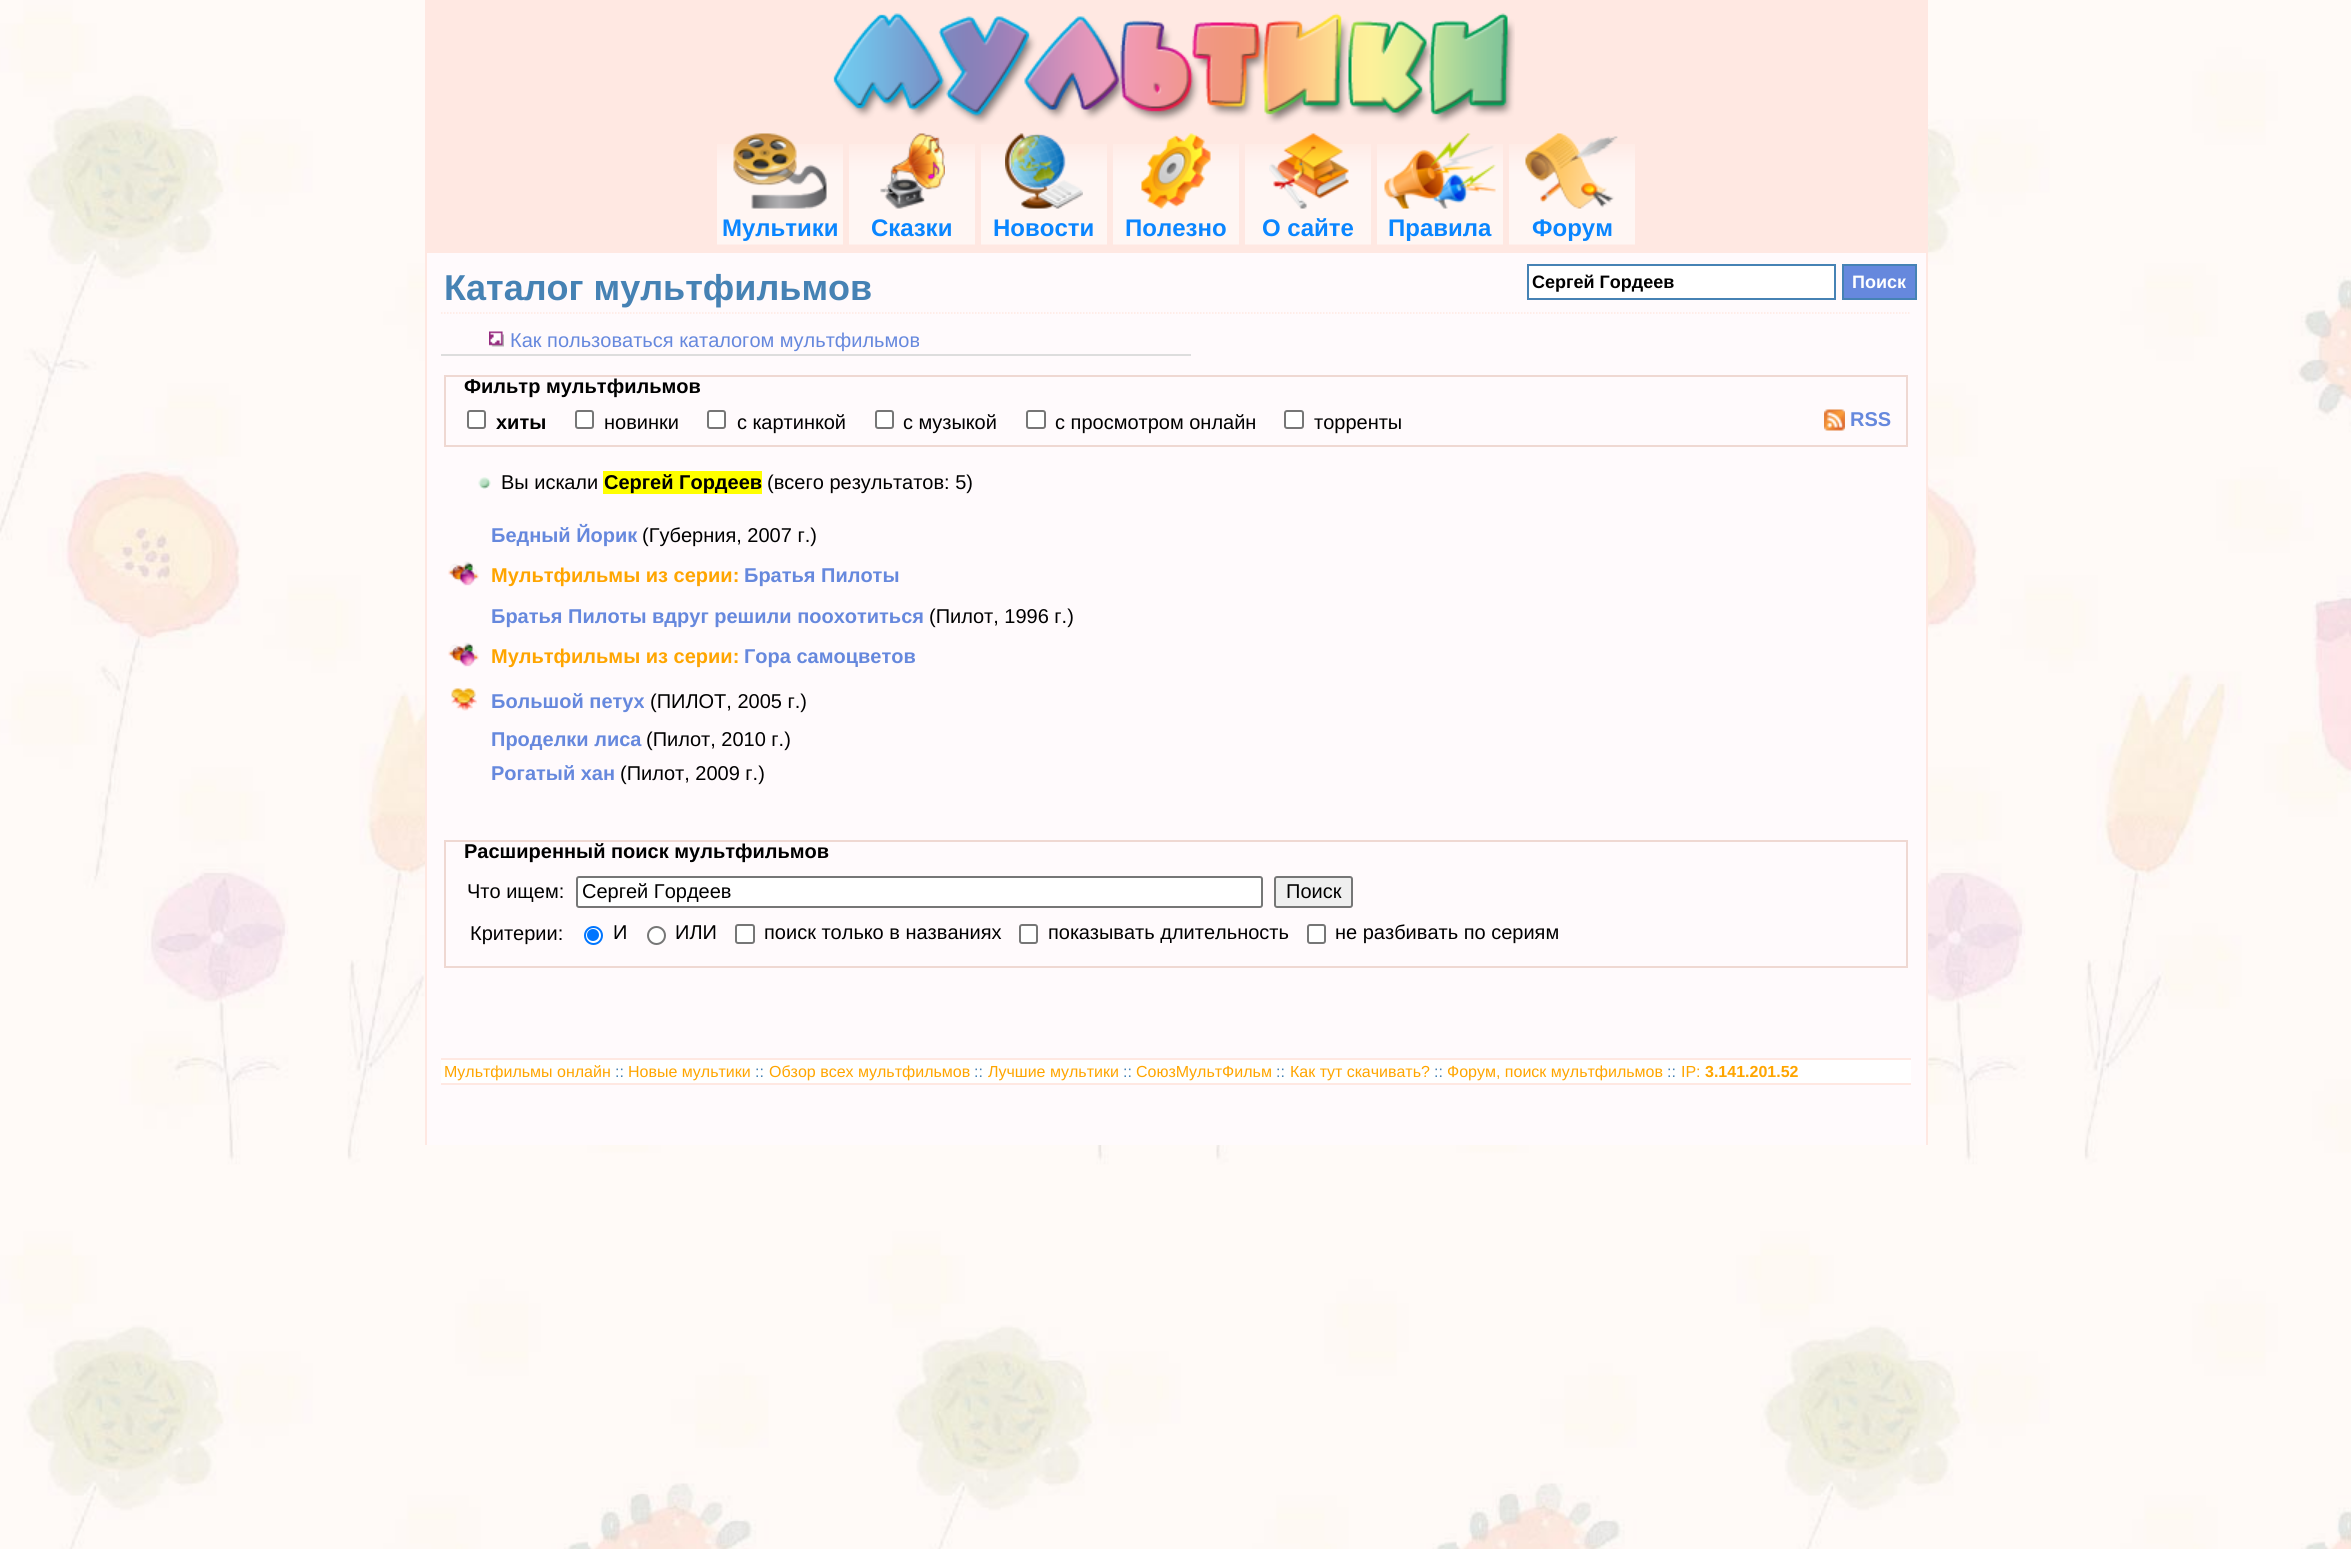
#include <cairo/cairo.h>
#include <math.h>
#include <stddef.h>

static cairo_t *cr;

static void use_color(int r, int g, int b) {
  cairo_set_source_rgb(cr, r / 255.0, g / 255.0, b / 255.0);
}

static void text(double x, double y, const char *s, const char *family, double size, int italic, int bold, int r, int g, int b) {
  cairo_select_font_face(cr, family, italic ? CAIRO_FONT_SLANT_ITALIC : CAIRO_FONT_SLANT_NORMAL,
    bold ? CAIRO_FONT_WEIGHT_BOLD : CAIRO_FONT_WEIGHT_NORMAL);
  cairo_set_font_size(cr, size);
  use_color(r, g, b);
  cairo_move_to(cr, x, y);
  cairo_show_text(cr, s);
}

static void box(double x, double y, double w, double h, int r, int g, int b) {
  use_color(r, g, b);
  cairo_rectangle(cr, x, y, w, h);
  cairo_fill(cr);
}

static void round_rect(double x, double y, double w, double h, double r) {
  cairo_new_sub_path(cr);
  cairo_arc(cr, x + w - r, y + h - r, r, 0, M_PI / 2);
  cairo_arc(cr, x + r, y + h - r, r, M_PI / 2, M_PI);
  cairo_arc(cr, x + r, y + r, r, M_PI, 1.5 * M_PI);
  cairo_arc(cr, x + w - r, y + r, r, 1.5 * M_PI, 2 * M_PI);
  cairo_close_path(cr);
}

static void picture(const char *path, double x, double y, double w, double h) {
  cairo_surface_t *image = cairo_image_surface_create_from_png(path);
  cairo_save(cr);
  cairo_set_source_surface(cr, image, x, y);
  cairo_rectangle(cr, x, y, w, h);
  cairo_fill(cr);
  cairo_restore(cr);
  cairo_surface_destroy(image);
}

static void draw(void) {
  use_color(255, 255, 255);
  cairo_paint(cr);
  picture("img_01.png", 0, 0, 2351, 1549);
  box(427, 253, 1499, 892, 255, 250, 252);
  box(1926, 0, 2, 1145, 255, 232, 226);
  box(425, 0, 2, 1145, 255, 232, 226);
  box(427, 0, 1499, 251, 255, 232, 226);
  box(426, 251, 1500, 2, 255, 232, 226);
  picture("img_02.png", 833, 13, 682, 112);
  picture("img_03.png", 717, 144, 126, 101);
  picture("img_04.png", 733, 133, 94, 76);
  picture("img_03.png", 849, 144, 126, 101);
  picture("img_05.png", 880, 133, 65, 76);
  picture("img_03.png", 981, 144, 126, 101);
  picture("img_06.png", 1005, 133, 78, 76);
  picture("img_03.png", 1113, 144, 126, 101);
  picture("img_07.png", 1141, 133, 70, 76);
  picture("img_03.png", 1245, 144, 126, 101);
  picture("img_08.png", 1269, 133, 80, 76);
  picture("img_03.png", 1377, 144, 126, 101);
  picture("img_09.png", 1384, 133, 112, 76);
  picture("img_03.png", 1509, 144, 126, 101);
  picture("img_10.png", 1525, 133, 93, 76);
  cairo_new_path(cr);
  cairo_move_to(cr, 441, 313);
  cairo_line_to(cr, 1911, 313);
  cairo_set_line_width(cr, 1.5);
  cairo_set_dash(cr, (double[]){1.5, 1.5}, 2, 0);
  cairo_stroke(cr);
  use_color(255, 255, 255);
  cairo_rectangle(cr, 1528, 265, 307, 34);
  cairo_fill_preserve(cr);
  use_color(70, 130, 180);
  cairo_set_line_width(cr, 2);
  cairo_set_dash(cr, NULL, 0, 0);
  cairo_stroke(cr);
  use_color(102, 136, 221);
  cairo_rectangle(cr, 1843, 265, 73, 34);
  cairo_fill_preserve(cr);
  use_color(70, 130, 180);
  cairo_stroke(cr);
  box(441, 354, 750, 2, 221, 221, 221);
  picture("img_11.png", 489, 331, 15, 16);
  cairo_rectangle(cr, 445, 376, 1462, 70);
  use_color(239, 216, 210);
  cairo_stroke(cr);
  use_color(255, 255, 255);
  round_rect(468, 411, 17, 17, 2);
  cairo_fill_preserve(cr);
  use_color(118, 118, 118);
  cairo_stroke(cr);
  use_color(255, 255, 255);
  round_rect(576, 411, 17, 17, 2);
  cairo_fill_preserve(cr);
  use_color(118, 118, 118);
  cairo_stroke(cr);
  use_color(255, 255, 255);
  round_rect(708, 411, 17, 17, 2);
  cairo_fill_preserve(cr);
  use_color(118, 118, 118);
  cairo_stroke(cr);
  use_color(255, 255, 255);
  round_rect(876, 411, 17, 17, 2);
  cairo_fill_preserve(cr);
  use_color(118, 118, 118);
  cairo_stroke(cr);
  use_color(255, 255, 255);
  round_rect(1027, 411, 18, 17, 2);
  cairo_fill_preserve(cr);
  use_color(118, 118, 118);
  cairo_stroke(cr);
  use_color(255, 255, 255);
  round_rect(1285, 411, 18, 17, 2);
  cairo_fill_preserve(cr);
  use_color(118, 118, 118);
  cairo_stroke(cr);
  picture("img_12.png", 1824, 409, 21, 22);
  picture("img_13.png", 478, 477, 13, 12);
  box(603, 471, 159, 23, 255, 255, 0);
  picture("img_14.png", 448, 561, 31, 25);
  picture("img_14.png", 448, 642, 31, 25);
  picture("img_15.png", 451, 688, 26, 23);
  cairo_rectangle(cr, 445, 841, 1462, 126);
  use_color(239, 216, 210);
  cairo_stroke(cr);
  use_color(255, 255, 255);
  round_rect(577, 877, 685, 30, 2);
  cairo_fill_preserve(cr);
  use_color(118, 118, 118);
  cairo_stroke(cr);
  use_color(239, 239, 239);
  round_rect(1275, 877, 77, 30, 2);
  cairo_fill_preserve(cr);
  use_color(118, 118, 118);
  cairo_stroke(cr);
  use_color(255, 255, 255);
  cairo_arc(cr, 593.5, 935.5, 8.5, 0, 2 * M_PI);
  cairo_fill_preserve(cr);
  use_color(0, 117, 255);
  cairo_stroke(cr);
  cairo_arc(cr, 593, 935, 6, 0, 2 * M_PI);
  cairo_fill(cr);
  use_color(255, 255, 255);
  cairo_arc(cr, 656.5, 935.5, 8.5, 0, 2 * M_PI);
  cairo_fill_preserve(cr);
  use_color(118, 118, 118);
  cairo_stroke(cr);
  use_color(255, 255, 255);
  round_rect(736, 925, 18, 18, 2);
  cairo_fill_preserve(cr);
  use_color(118, 118, 118);
  cairo_stroke(cr);
  use_color(255, 255, 255);
  round_rect(1020, 925, 17, 18, 2);
  cairo_fill_preserve(cr);
  use_color(118, 118, 118);
  cairo_stroke(cr);
  use_color(255, 255, 255);
  round_rect(1308, 925, 17, 18, 2);
  cairo_fill_preserve(cr);
  use_color(118, 118, 118);
  cairo_stroke(cr);
  box(441, 1060, 1470, 23, 255, 255, 255);
  box(441, 1058, 1470, 2, 255, 232, 226);
  box(441, 1083, 1470, 2, 255, 232, 226);
  text(722, 236, "Мультики", "Liberation Sans", 24, 0, 1, 10, 134, 255);
  text(871, 236, "Сказки", "Liberation Sans", 24, 0, 1, 10, 134, 255);
  text(993, 236, "Новости", "Liberation Sans", 24, 0, 1, 10, 134, 255);
  text(1125, 236, "Полезно", "Liberation Sans", 24, 0, 1, 10, 134, 255);
  text(1262, 236, "О сайте", "Liberation Sans", 24, 0, 1, 10, 134, 255);
  text(1388, 236, "Правила", "Liberation Sans", 24, 0, 1, 10, 134, 255);
  text(1532, 236, "Форум", "Liberation Sans", 24, 0, 1, 10, 134, 255);
  text(444, 300, "Каталог мультфильмов", "Liberation Sans", 36, 0, 1, 70, 130, 180);
  text(1532, 288, "Сергей Гордеев", "Liberation Sans", 18, 0, 1, 0, 0, 0);
  text(1852, 288, "Поиск", "Liberation Sans", 18, 0, 1, 255, 255, 255);
  text(510, 347, "Как пользоваться каталогом мультфильмов", "Liberation Sans", 20, 0, 0, 102, 136, 221);
  text(464, 393, "Фильтр мультфильмов", "Liberation Sans", 20, 0, 1, 0, 0, 0);
  text(496, 429, "хиты", "Liberation Sans", 20, 0, 1, 0, 0, 0);
  text(604, 429, "новинки", "Liberation Sans", 20, 0, 0, 0, 0, 0);
  text(737, 429, "с картинкой", "Liberation Sans", 20, 0, 0, 0, 0, 0);
  text(903, 429, "с музыкой", "Liberation Sans", 20, 0, 0, 0, 0, 0);
  text(1055, 429, "с просмотром онлайн", "Liberation Sans", 20, 0, 0, 0, 0, 0);
  text(1314, 429, "торренты", "Liberation Sans", 20, 0, 0, 0, 0, 0);
  text(1850, 426, "RSS", "Liberation Sans", 20, 0, 1, 102, 136, 221);
  text(501, 489, "Вы искали", "Liberation Sans", 20, 0, 0, 0, 0, 0);
  text(604, 489, "Сергей Гордеев", "Liberation Sans", 20, 0, 1, 0, 0, 0);
  text(767, 489, "(всего результатов: 5)", "Liberation Sans", 20, 0, 0, 0, 0, 0);
  text(491, 542, "Бедный Йорик", "Liberation Sans", 20, 0, 1, 102, 136, 221);
  text(642, 542, "(Губерния, 2007 г.)", "Liberation Sans", 20, 0, 0, 0, 0, 0);
  text(491, 582, "Мультфильмы из серии:", "Liberation Sans", 20, 0, 1, 255, 165, 0);
  text(744, 582, "Братья Пилоты", "Liberation Sans", 20, 0, 1, 102, 136, 221);
  text(491, 623, "Братья Пилоты вдруг решили поохотиться", "Liberation Sans", 20, 0, 1, 102, 136, 221);
  text(929, 623, "(Пилот, 1996 г.)", "Liberation Sans", 20, 0, 0, 0, 0, 0);
  text(491, 663, "Мультфильмы из серии:", "Liberation Sans", 20, 0, 1, 255, 165, 0);
  text(744, 663, "Гора самоцветов", "Liberation Sans", 20, 0, 1, 102, 136, 221);
  text(491, 708, "Большой петух", "Liberation Sans", 20, 0, 1, 102, 136, 221);
  text(650, 708, "(ПИЛОТ, 2005 г.)", "Liberation Sans", 20, 0, 0, 0, 0, 0);
  text(491, 746, "Проделки лиса", "Liberation Sans", 20, 0, 1, 102, 136, 221);
  text(646, 746, "(Пилот, 2010 г.)", "Liberation Sans", 20, 0, 0, 0, 0, 0);
  text(491, 780, "Рогатый хан", "Liberation Sans", 20, 0, 1, 102, 136, 221);
  text(620, 780, "(Пилот, 2009 г.)", "Liberation Sans", 20, 0, 0, 0, 0, 0);
  text(464, 858, "Расширенный поиск мультфильмов", "Liberation Sans", 20, 0, 1, 0, 0, 0);
  text(467, 898, "Что ищем:", "Liberation Sans", 20, 0, 0, 0, 0, 0);
  text(582, 898, "Сергей Гордеев", "Liberation Sans", 20, 0, 0, 0, 0, 0);
  text(1286, 898, "Поиск", "Liberation Sans", 20, 0, 0, 0, 0, 0);
  text(470, 940, "Критерии:", "Liberation Sans", 20, 0, 0, 0, 0, 0);
  text(613, 939, "И", "Liberation Sans", 20, 0, 0, 0, 0, 0);
  text(675, 939, "ИЛИ", "Liberation Sans", 20, 0, 0, 0, 0, 0);
  text(764, 939, "поиск только в названиях", "Liberation Sans", 20, 0, 0, 0, 0, 0);
  text(1048, 939, "показывать длительность", "Liberation Sans", 20, 0, 0, 0, 0, 0);
  text(1335, 939, "не разбивать по сериям", "Liberation Sans", 20, 0, 0, 0, 0, 0);
  text(444, 1077, "Мультфильмы онлайн", "Liberation Sans", 16, 0, 0, 255, 165, 0);
  text(615, 1077, "::", "Liberation Sans", 16, 0, 0, 70, 130, 180);
  text(628, 1077, "Новые мультики", "Liberation Sans", 16, 0, 0, 255, 165, 0);
  text(755, 1077, "::", "Liberation Sans", 16, 0, 0, 70, 130, 180);
  text(769, 1077, "Обзор всех мультфильмов", "Liberation Sans", 16, 0, 0, 255, 165, 0);
  text(974, 1077, "::", "Liberation Sans", 16, 0, 0, 70, 130, 180);
  text(988, 1077, "Лучшие мультики", "Liberation Sans", 16, 0, 0, 255, 165, 0);
  text(1123, 1077, "::", "Liberation Sans", 16, 0, 0, 70, 130, 180);
  text(1136, 1077, "СоюзМультФильм", "Liberation Sans", 16, 0, 0, 255, 165, 0);
  text(1276, 1077, "::", "Liberation Sans", 16, 0, 0, 70, 130, 180);
  text(1290, 1077, "Как тут скачивать?", "Liberation Sans", 16, 0, 0, 255, 165, 0);
  text(1434, 1077, "::", "Liberation Sans", 16, 0, 0, 70, 130, 180);
  text(1447, 1077, "Форум, поиск мультфильмов", "Liberation Sans", 16, 0, 0, 255, 165, 0);
  text(1667, 1077, "::", "Liberation Sans", 16, 0, 0, 70, 130, 180);
  text(1681, 1077, "IP:", "Liberation Sans", 16, 0, 0, 255, 165, 0);
  text(1705, 1077, "3.141.201.52", "Liberation Sans", 16, 0, 1, 255, 165, 0);
}

int main(void) {
  cairo_surface_t *surface = cairo_image_surface_create(CAIRO_FORMAT_RGB24, 2351, 1549);
  cr = cairo_create(surface);
  cairo_font_options_t *options = cairo_font_options_create();
  cairo_font_options_set_hint_metrics(options, CAIRO_HINT_METRICS_OFF);
  cairo_font_options_set_hint_style(options, CAIRO_HINT_STYLE_NONE);
  cairo_set_font_options(cr, options);
  cairo_set_miter_limit(cr, 4);
  draw();
  cairo_surface_write_to_png(surface, "out.png");
  cairo_font_options_destroy(options);
  cairo_destroy(cr);
  cairo_surface_destroy(surface);
  return 0;
}
